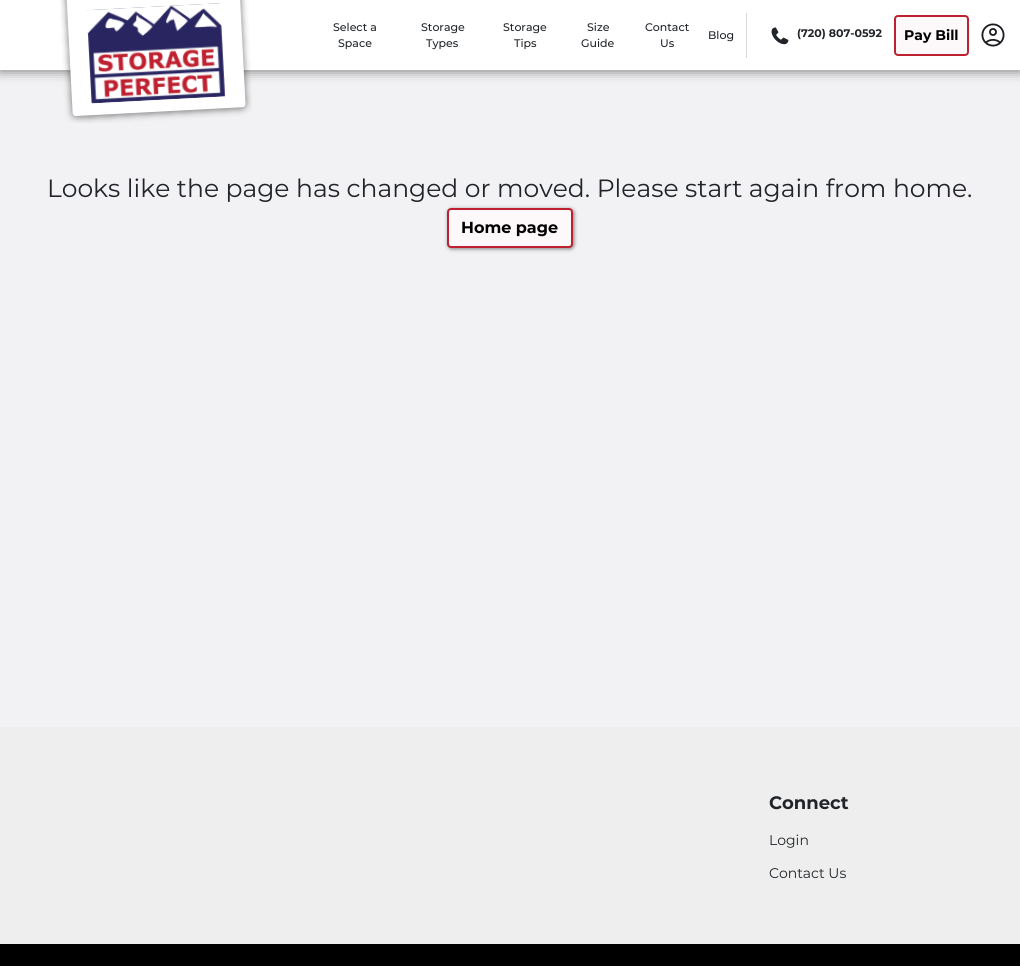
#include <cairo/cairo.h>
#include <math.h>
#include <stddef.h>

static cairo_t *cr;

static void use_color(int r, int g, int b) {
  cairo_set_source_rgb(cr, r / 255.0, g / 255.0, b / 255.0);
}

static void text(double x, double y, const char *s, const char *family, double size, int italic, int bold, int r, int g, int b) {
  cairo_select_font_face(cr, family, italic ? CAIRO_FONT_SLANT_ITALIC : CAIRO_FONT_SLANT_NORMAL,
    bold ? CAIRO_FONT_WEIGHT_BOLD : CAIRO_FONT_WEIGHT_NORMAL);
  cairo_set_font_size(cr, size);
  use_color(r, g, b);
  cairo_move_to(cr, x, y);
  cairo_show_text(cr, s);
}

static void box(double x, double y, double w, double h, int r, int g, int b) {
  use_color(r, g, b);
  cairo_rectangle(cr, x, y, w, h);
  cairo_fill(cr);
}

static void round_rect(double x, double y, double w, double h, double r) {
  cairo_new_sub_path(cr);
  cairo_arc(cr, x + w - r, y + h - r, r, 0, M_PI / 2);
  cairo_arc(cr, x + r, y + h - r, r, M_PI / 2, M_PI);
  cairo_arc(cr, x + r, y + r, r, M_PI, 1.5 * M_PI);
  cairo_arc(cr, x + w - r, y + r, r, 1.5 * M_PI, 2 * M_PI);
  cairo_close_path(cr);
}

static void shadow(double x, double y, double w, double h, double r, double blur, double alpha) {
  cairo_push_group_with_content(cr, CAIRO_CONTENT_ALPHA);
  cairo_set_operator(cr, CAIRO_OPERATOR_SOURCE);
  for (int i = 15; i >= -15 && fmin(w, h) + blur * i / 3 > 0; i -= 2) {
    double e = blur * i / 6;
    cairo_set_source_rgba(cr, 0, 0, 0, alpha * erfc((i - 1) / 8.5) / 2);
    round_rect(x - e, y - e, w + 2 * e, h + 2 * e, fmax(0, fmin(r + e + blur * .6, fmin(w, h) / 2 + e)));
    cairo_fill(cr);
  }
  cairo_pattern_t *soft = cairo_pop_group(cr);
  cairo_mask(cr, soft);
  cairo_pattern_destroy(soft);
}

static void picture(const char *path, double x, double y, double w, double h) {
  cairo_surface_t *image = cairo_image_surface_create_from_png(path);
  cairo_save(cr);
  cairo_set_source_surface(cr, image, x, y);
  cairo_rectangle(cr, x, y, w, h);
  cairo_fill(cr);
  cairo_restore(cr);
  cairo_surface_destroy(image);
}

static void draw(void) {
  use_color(242, 242, 244);
  cairo_paint(cr);
  use_color(0, 0, 0);
  shadow(0, 1, 1020, 70, 0, 6, 0.5);
  box(0, 0, 1020, 70, 255, 255, 255);
  picture("img_01.png", 60, 0, 192, 123);
  box(746, 13, 1, 45, 216, 216, 216);
  picture("img_02.png", 771, 27, 18, 18);
  use_color(253, 248, 249);
  round_rect(895, 16, 73, 39, 3);
  cairo_fill_preserve(cr);
  use_color(190, 33, 48);
  cairo_stroke(cr);
  picture("img_03.png", 981, 23, 24, 24);
  use_color(0, 0, 0);
  shadow(448, 209, 126, 40, 4, 2, 0.5);
  use_color(253, 248, 249);
  round_rect(448, 209, 124, 38, 3);
  cairo_fill_preserve(cr);
  use_color(190, 32, 47);
  cairo_stroke(cr);
  box(0, 727, 1020, 217, 238, 238, 238);
  box(0, 944, 1020, 22, 0, 0, 0);
  text(333, 31, "Select a", "Montserrat Medium", 11, 0, 0, 33, 37, 41);
  text(338, 47, "Space", "Montserrat Medium", 11, 0, 0, 33, 37, 41);
  text(421, 31, "Storage", "Montserrat Medium", 11, 0, 0, 33, 37, 41);
  text(426, 47, "Types", "Montserrat Medium", 11, 0, 0, 33, 37, 41);
  text(503, 31, "Storage", "Montserrat Medium", 11, 0, 0, 33, 37, 41);
  text(514, 47, "Tips", "Montserrat Medium", 11, 0, 0, 33, 37, 41);
  text(587, 31, "Size", "Montserrat Medium", 11, 0, 0, 33, 37, 41);
  text(581, 47, "Guide", "Montserrat Medium", 11, 0, 0, 33, 37, 41);
  text(645, 31, "Contact", "Montserrat Medium", 11, 0, 0, 33, 37, 41);
  text(660, 47, "Us", "Montserrat Medium", 11, 0, 0, 33, 37, 41);
  text(708, 39, "Blog", "Montserrat Medium", 11, 0, 0, 33, 37, 41);
  text(797, 37, "(720) 807-0592", "Montserrat", 11, 0, 1, 33, 37, 41);
  text(904, 40, "Pay Bill", "Montserrat", 14, 0, 1, 1, 1, 1);
  text(47, 197, "Looks like the page has changed or moved. Please start again from home.", "Montserrat", 25, 0, 0, 33, 37, 41);
  text(461, 233, "Home page", "Montserrat", 16, 0, 1, 1, 1, 1);
  text(769, 809, "Connect", "Montserrat", 18, 0, 1, 33, 37, 41);
  text(769, 845, "Login", "Montserrat", 14, 0, 0, 33, 37, 41);
  text(769, 878, "Contact Us", "Montserrat", 14, 0, 0, 33, 37, 41);
}

int main(void) {
  cairo_surface_t *surface = cairo_image_surface_create(CAIRO_FORMAT_RGB24, 1020, 966);
  cr = cairo_create(surface);
  cairo_font_options_t *options = cairo_font_options_create();
  cairo_font_options_set_hint_metrics(options, CAIRO_HINT_METRICS_OFF);
  cairo_font_options_set_hint_style(options, CAIRO_HINT_STYLE_NONE);
  cairo_set_font_options(cr, options);
  cairo_set_miter_limit(cr, 4);
  draw();
  cairo_surface_write_to_png(surface, "out.png");
  cairo_font_options_destroy(options);
  cairo_destroy(cr);
  cairo_surface_destroy(surface);
  return 0;
}
